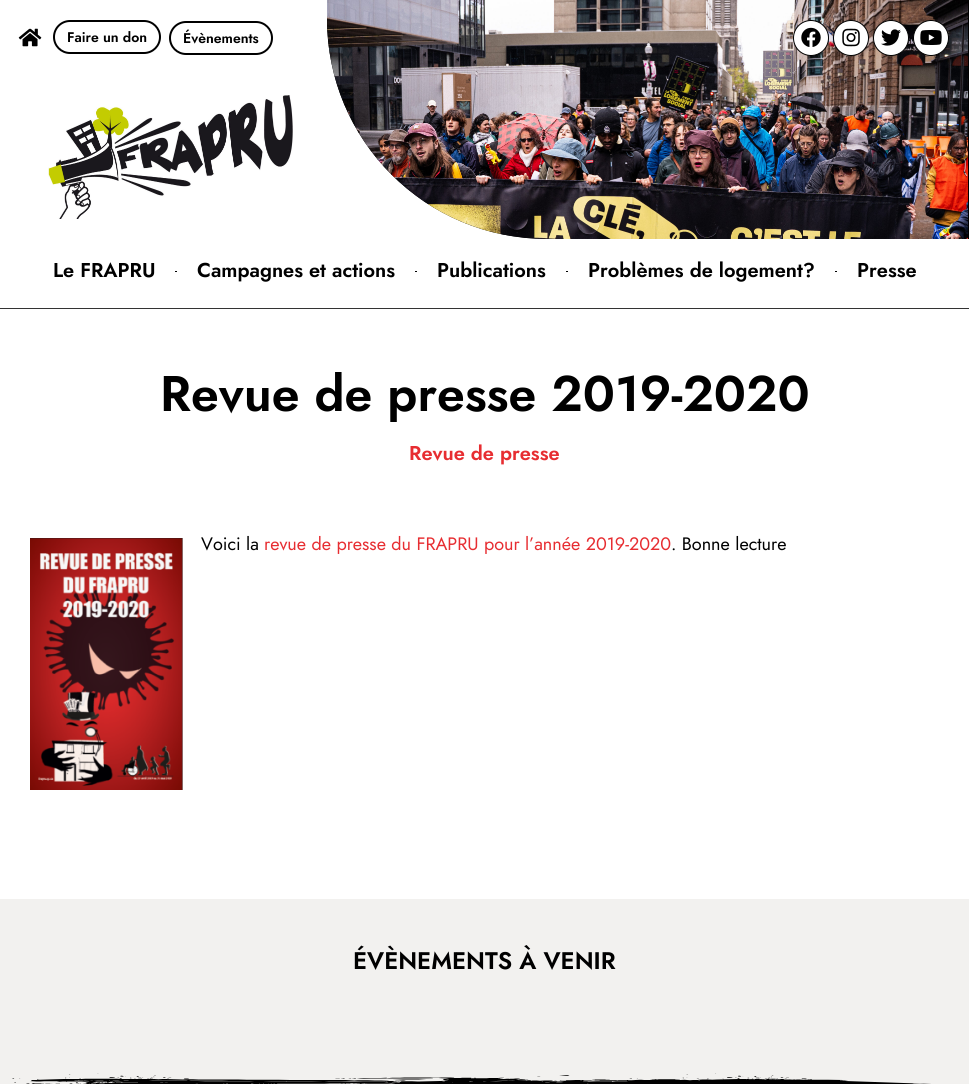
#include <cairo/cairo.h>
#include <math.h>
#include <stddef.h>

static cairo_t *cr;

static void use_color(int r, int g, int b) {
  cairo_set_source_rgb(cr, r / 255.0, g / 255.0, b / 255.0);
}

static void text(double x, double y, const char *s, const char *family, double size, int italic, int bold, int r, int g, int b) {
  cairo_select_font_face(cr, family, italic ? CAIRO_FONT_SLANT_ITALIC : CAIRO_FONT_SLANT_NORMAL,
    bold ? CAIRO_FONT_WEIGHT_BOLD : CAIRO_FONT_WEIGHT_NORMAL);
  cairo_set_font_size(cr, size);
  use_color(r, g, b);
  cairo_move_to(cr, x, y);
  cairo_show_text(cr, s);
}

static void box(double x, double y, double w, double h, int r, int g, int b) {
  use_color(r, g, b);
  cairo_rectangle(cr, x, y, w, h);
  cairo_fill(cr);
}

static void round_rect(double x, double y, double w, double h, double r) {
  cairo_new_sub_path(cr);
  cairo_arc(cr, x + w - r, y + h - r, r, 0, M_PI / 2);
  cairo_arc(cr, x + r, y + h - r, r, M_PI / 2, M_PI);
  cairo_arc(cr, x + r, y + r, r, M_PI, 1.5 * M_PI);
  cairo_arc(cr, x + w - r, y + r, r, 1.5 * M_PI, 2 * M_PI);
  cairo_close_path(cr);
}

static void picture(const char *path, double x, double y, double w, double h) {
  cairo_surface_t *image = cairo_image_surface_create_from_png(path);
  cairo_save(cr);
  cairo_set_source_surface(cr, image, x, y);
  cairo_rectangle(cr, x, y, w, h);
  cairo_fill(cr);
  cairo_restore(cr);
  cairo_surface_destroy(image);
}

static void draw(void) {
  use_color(255, 255, 255);
  cairo_paint(cr);
  picture("img_01.png", 18, 28, 24, 19);
  round_rect(54, 21, 106, 32, 16);
  use_color(0, 0, 0);
  cairo_stroke(cr);
  round_rect(170, 22, 102, 32, 16);
  cairo_stroke(cr);
  picture("img_02.png", 48, 95, 245, 124);
  cairo_new_path(cr);
  cairo_move_to(cr, 327, 0);
  cairo_line_to(cr, 969, 0);
  cairo_line_to(cr, 969, 239);
  cairo_line_to(cr, 547, 239);
  cairo_curve_to(cr, 425.5, 239, 327, 140.5, 327, 19);
  cairo_close_path(cr);
  cairo_fill(cr);
  picture("img_03.png", 327, 0, 641, 239);
  use_color(255, 255, 255);
  cairo_arc(cr, 811, 38, 17.5, 0, 2 * M_PI);
  cairo_fill_preserve(cr);
  use_color(0, 0, 0);
  cairo_set_line_width(cr, 1);
  cairo_stroke(cr);
  picture("img_04.png", 801, 27, 20, 20);
  use_color(255, 255, 255);
  cairo_arc(cr, 851, 38, 17.5, 0, 2 * M_PI);
  cairo_fill_preserve(cr);
  use_color(0, 0, 0);
  cairo_stroke(cr);
  picture("img_05.png", 842, 28, 18, 19);
  use_color(255, 255, 255);
  cairo_arc(cr, 891, 38, 17.5, 0, 2 * M_PI);
  cairo_fill_preserve(cr);
  use_color(0, 0, 0);
  cairo_stroke(cr);
  picture("img_06.png", 881, 29, 20, 17);
  use_color(255, 255, 255);
  cairo_arc(cr, 931, 38, 17.5, 0, 2 * M_PI);
  cairo_fill_preserve(cr);
  use_color(0, 0, 0);
  cairo_stroke(cr);
  picture("img_07.png", 920, 30, 22, 15);
  box(0, 308, 969, 1, 51, 51, 51);
  box(175, 271, 2, 1, 0, 0, 0);
  box(415, 271, 2, 1, 0, 0, 0);
  box(566, 271, 2, 1, 0, 0, 0);
  box(835, 271, 2, 1, 0, 0, 0);
  picture("img_08.png", 30, 538, 153, 252);
  box(0, 899, 969, 185, 242, 241, 239);
  picture("img_09.png", 12, 1073, 919, 11);
  text(67, 42, "Faire un don", "Jost SemiBold", 14, 0, 0, 0, 0, 0);
  text(183, 43, "Évènements", "Jost SemiBold", 14, 0, 0, 0, 0, 0);
  text(53, 277, "Le FRAPRU", "Jost SemiBold", 20, 0, 0, 0, 0, 0);
  text(197, 277, "Campagnes et actions", "Jost SemiBold", 20, 0, 0, 0, 0, 0);
  text(437, 277, "Publications", "Jost SemiBold", 20, 0, 0, 0, 0, 0);
  text(588, 277, "Problèmes de logement?", "Jost SemiBold", 20, 0, 0, 0, 0, 0);
  text(857, 277, "Presse", "Jost SemiBold", 20, 0, 0, 0, 0, 0);
  text(160, 411, "Revue de presse 2019-2020", "Jost SemiBold", 50, 0, 0, 0, 0, 0);
  text(409, 460, "Revue de presse", "Jost SemiBold", 20, 0, 0, 231, 45, 49);
  text(201, 550, "Voici la", "Jost", 18, 0, 0, 0, 0, 0);
  text(264, 550, "revue de presse du FRAPRU pour l’année 2019-2020", "Jost", 18, 0, 0, 231, 45, 49);
  text(671, 550, ". Bonne lecture", "Jost", 18, 0, 0, 0, 0, 0);
  text(353, 969, "ÉVÈNEMENTS À VENIR", "Jost SemiBold", 24, 0, 0, 0, 0, 0);
}

int main(void) {
  cairo_surface_t *surface = cairo_image_surface_create(CAIRO_FORMAT_RGB24, 969, 1084);
  cr = cairo_create(surface);
  cairo_font_options_t *options = cairo_font_options_create();
  cairo_font_options_set_hint_metrics(options, CAIRO_HINT_METRICS_OFF);
  cairo_font_options_set_hint_style(options, CAIRO_HINT_STYLE_NONE);
  cairo_set_font_options(cr, options);
  cairo_set_miter_limit(cr, 4);
  draw();
  cairo_surface_write_to_png(surface, "out.png");
  cairo_font_options_destroy(options);
  cairo_destroy(cr);
  cairo_surface_destroy(surface);
  return 0;
}
